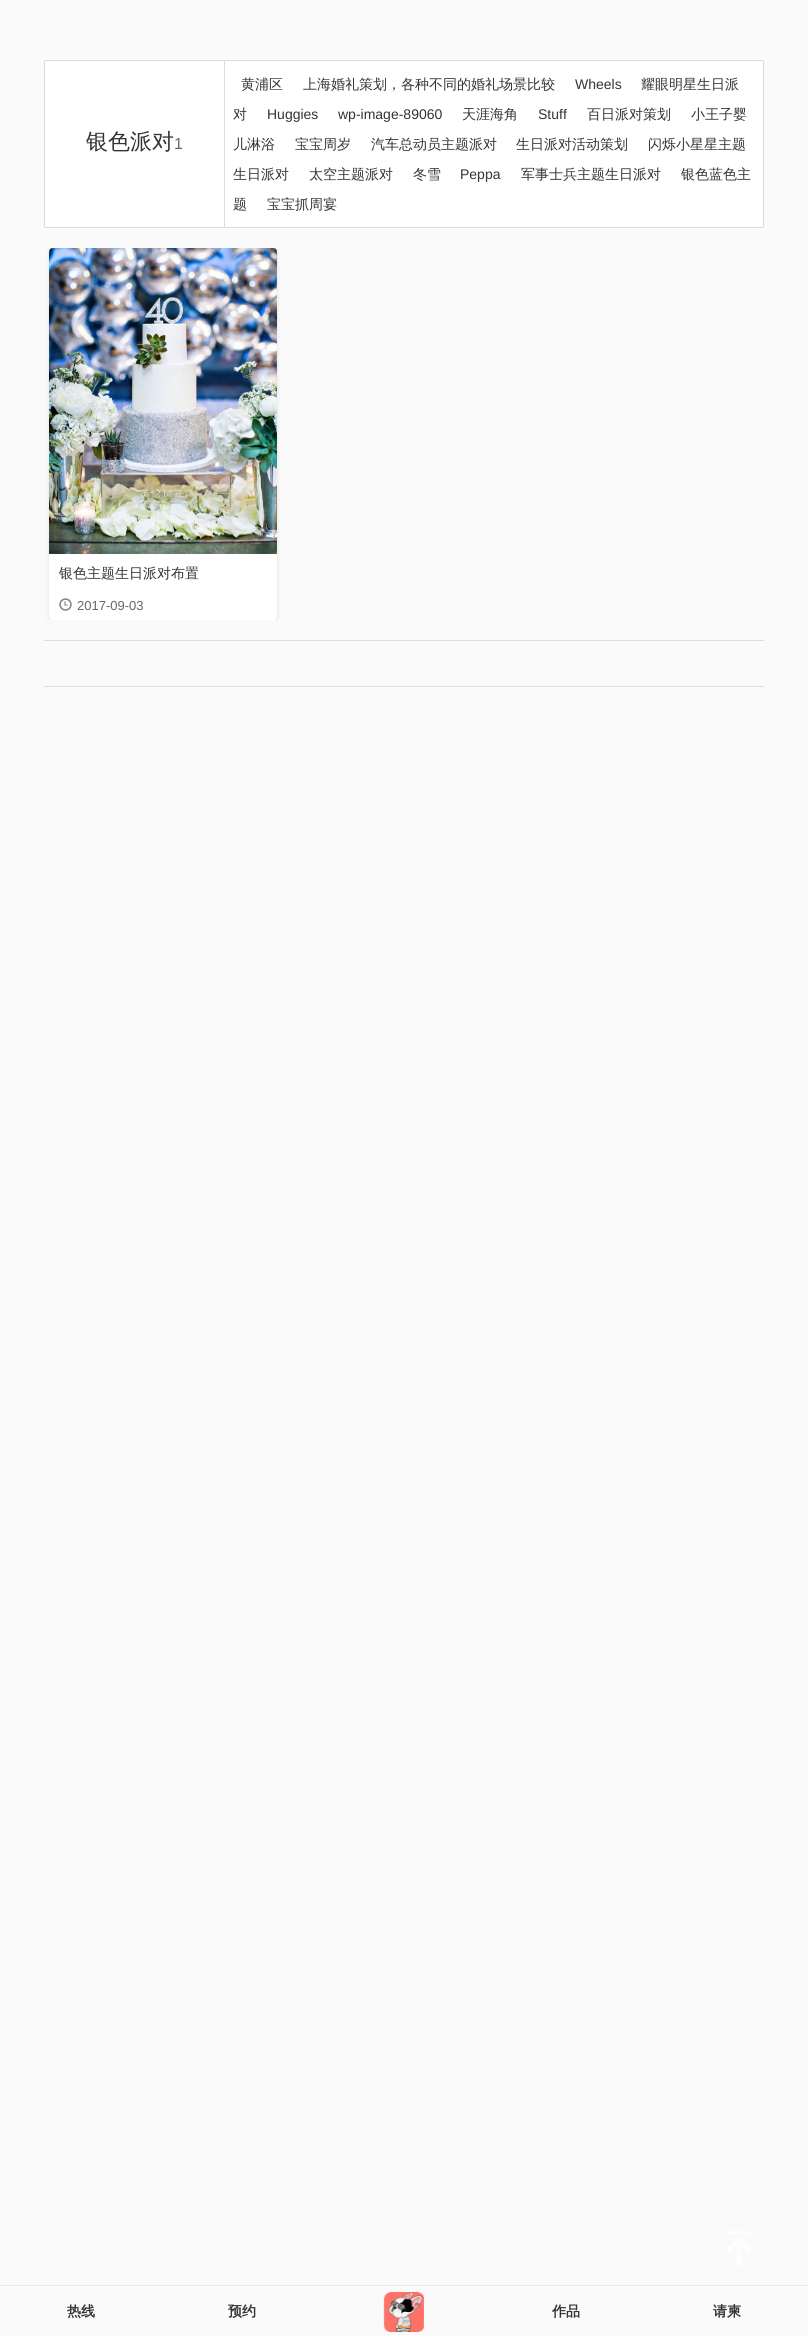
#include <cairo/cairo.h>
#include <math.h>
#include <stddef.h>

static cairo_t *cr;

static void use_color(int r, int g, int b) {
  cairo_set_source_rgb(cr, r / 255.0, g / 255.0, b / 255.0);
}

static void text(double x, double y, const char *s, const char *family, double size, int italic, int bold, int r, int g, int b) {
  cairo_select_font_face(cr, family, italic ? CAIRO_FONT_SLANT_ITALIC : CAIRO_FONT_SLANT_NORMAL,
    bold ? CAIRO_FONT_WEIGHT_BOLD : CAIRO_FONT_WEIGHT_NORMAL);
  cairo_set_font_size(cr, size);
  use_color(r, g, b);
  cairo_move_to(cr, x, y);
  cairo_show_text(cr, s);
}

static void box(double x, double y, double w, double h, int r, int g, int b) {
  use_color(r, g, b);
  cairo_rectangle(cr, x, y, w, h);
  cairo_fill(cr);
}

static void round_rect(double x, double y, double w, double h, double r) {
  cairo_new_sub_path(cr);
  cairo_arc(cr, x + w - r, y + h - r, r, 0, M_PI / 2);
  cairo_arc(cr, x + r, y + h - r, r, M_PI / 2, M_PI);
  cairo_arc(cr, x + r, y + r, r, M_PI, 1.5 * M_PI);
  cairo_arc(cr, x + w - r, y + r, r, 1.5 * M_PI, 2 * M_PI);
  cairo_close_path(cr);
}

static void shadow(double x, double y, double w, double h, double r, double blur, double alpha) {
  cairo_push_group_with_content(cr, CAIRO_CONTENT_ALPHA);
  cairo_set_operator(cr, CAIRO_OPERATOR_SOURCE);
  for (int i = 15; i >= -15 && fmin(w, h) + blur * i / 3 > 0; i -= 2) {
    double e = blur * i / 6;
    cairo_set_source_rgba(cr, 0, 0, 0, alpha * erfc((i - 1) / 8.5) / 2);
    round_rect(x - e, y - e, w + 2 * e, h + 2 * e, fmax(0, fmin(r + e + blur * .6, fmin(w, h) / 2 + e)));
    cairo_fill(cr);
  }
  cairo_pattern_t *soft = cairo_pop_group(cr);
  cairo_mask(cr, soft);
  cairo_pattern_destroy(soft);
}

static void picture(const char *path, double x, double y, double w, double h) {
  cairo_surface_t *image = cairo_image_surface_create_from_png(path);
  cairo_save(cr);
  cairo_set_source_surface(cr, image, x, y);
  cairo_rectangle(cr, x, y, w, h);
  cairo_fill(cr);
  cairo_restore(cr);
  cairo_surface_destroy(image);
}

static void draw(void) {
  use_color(250, 250, 250);
  cairo_paint(cr);
  box(45, 61, 718, 166, 255, 255, 255);
  box(44, 60, 720, 1, 221, 221, 221);
  box(763, 60, 1, 168, 221, 221, 221);
  box(44, 227, 720, 1, 221, 221, 221);
  box(44, 60, 1, 168, 221, 221, 221);
  box(224, 60, 1, 168, 221, 221, 221);
  cairo_save(cr);
  round_rect(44, 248, 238, 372, 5);
  cairo_clip(cr);
  use_color(110, 110, 110);
  shadow(49, 249, 228, 372, 4, 2, 0.2);
  cairo_restore(cr);
  use_color(255, 255, 255);
  round_rect(49, 248, 228, 372, 4);
  cairo_fill(cr);
  picture("img_01.png", 49, 248, 228, 306);
  picture("img_02.png", 59, 598, 13, 13);
  box(44, 640, 720, 1, 221, 221, 221);
  box(44, 686, 720, 1, 221, 221, 221);
  picture("img_03.png", 727, 2231, 24, 35);
  box(0, 2285, 808, 1, 231, 231, 231);
  picture("img_04.png", 383, 2292, 41, 40);
  text(86, 149, "银色派对", "WenQuanYi Zen Hei Medium", 22, 0, 0, 51, 51, 51);
  text(174, 149, "1", "Liberation Sans", 16, 0, 0, 102, 102, 102);
  text(241, 89, "黄浦区", "WenQuanYi Zen Hei Medium", 14, 0, 0, 51, 51, 51);
  text(303, 89, "上海婚礼策划，各种不同的婚礼场景比较", "WenQuanYi Zen Hei Medium", 14, 0, 0, 51, 51, 51);
  text(575, 89, "Wheels", "Liberation Sans", 14, 0, 0, 51, 51, 51);
  text(641, 89, "耀眼明星生日派", "WenQuanYi Zen Hei Medium", 14, 0, 0, 51, 51, 51);
  text(233, 119, "对", "WenQuanYi Zen Hei Medium", 14, 0, 0, 51, 51, 51);
  text(267, 119, "Huggies", "Liberation Sans", 14, 0, 0, 51, 51, 51);
  text(338, 119, "wp-image-89060", "Liberation Sans", 14, 0, 0, 51, 51, 51);
  text(462, 119, "天涯海角", "WenQuanYi Zen Hei Medium", 14, 0, 0, 51, 51, 51);
  text(538, 119, "Stuff", "Liberation Sans", 14, 0, 0, 51, 51, 51);
  text(587, 119, "百日派对策划", "WenQuanYi Zen Hei Medium", 14, 0, 0, 51, 51, 51);
  text(691, 119, "小王子婴", "WenQuanYi Zen Hei Medium", 14, 0, 0, 51, 51, 51);
  text(233, 149, "儿淋浴", "WenQuanYi Zen Hei Medium", 14, 0, 0, 51, 51, 51);
  text(295, 149, "宝宝周岁", "WenQuanYi Zen Hei Medium", 14, 0, 0, 51, 51, 51);
  text(371, 149, "汽车总动员主题派对", "WenQuanYi Zen Hei Medium", 14, 0, 0, 51, 51, 51);
  text(516, 149, "生日派对活动策划", "WenQuanYi Zen Hei Medium", 14, 0, 0, 51, 51, 51);
  text(648, 149, "闪烁小星星主题", "WenQuanYi Zen Hei Medium", 14, 0, 0, 51, 51, 51);
  text(233, 179, "生日派对", "WenQuanYi Zen Hei Medium", 14, 0, 0, 51, 51, 51);
  text(309, 179, "太空主题派对", "WenQuanYi Zen Hei Medium", 14, 0, 0, 51, 51, 51);
  text(413, 179, "冬雪", "WenQuanYi Zen Hei Medium", 14, 0, 0, 51, 51, 51);
  text(460, 179, "Peppa", "Liberation Sans", 14, 0, 0, 51, 51, 51);
  text(521, 179, "军事士兵主题生日派对", "WenQuanYi Zen Hei Medium", 14, 0, 0, 51, 51, 51);
  text(681, 179, "银色蓝色主", "WenQuanYi Zen Hei Medium", 14, 0, 0, 51, 51, 51);
  text(233, 209, "题", "WenQuanYi Zen Hei Medium", 14, 0, 0, 51, 51, 51);
  text(267, 209, "宝宝抓周宴", "WenQuanYi Zen Hei Medium", 14, 0, 0, 51, 51, 51);
  text(59, 578, "银色主题生日派对布置", "WenQuanYi Zen Hei Medium", 14, 0, 0, 51, 51, 51);
  text(77, 610, "2017-09-03", "Liberation Sans", 13, 0, 0, 102, 102, 102);
  text(67, 2316, "热线", "WenQuanYi Zen Hei", 14, 0, 1, 51, 51, 51);
  text(228, 2316, "预约", "WenQuanYi Zen Hei", 14, 0, 1, 51, 51, 51);
  text(552, 2316, "作品", "WenQuanYi Zen Hei", 14, 0, 1, 51, 51, 51);
  text(713, 2316, "请柬", "WenQuanYi Zen Hei", 14, 0, 1, 51, 51, 51);
}

int main(void) {
  cairo_surface_t *surface = cairo_image_surface_create(CAIRO_FORMAT_RGB24, 808, 2336);
  cr = cairo_create(surface);
  cairo_font_options_t *options = cairo_font_options_create();
  cairo_font_options_set_hint_metrics(options, CAIRO_HINT_METRICS_OFF);
  cairo_font_options_set_hint_style(options, CAIRO_HINT_STYLE_NONE);
  cairo_set_font_options(cr, options);
  cairo_set_miter_limit(cr, 4);
  draw();
  cairo_surface_write_to_png(surface, "out.png");
  cairo_font_options_destroy(options);
  cairo_destroy(cr);
  cairo_surface_destroy(surface);
  return 0;
}
